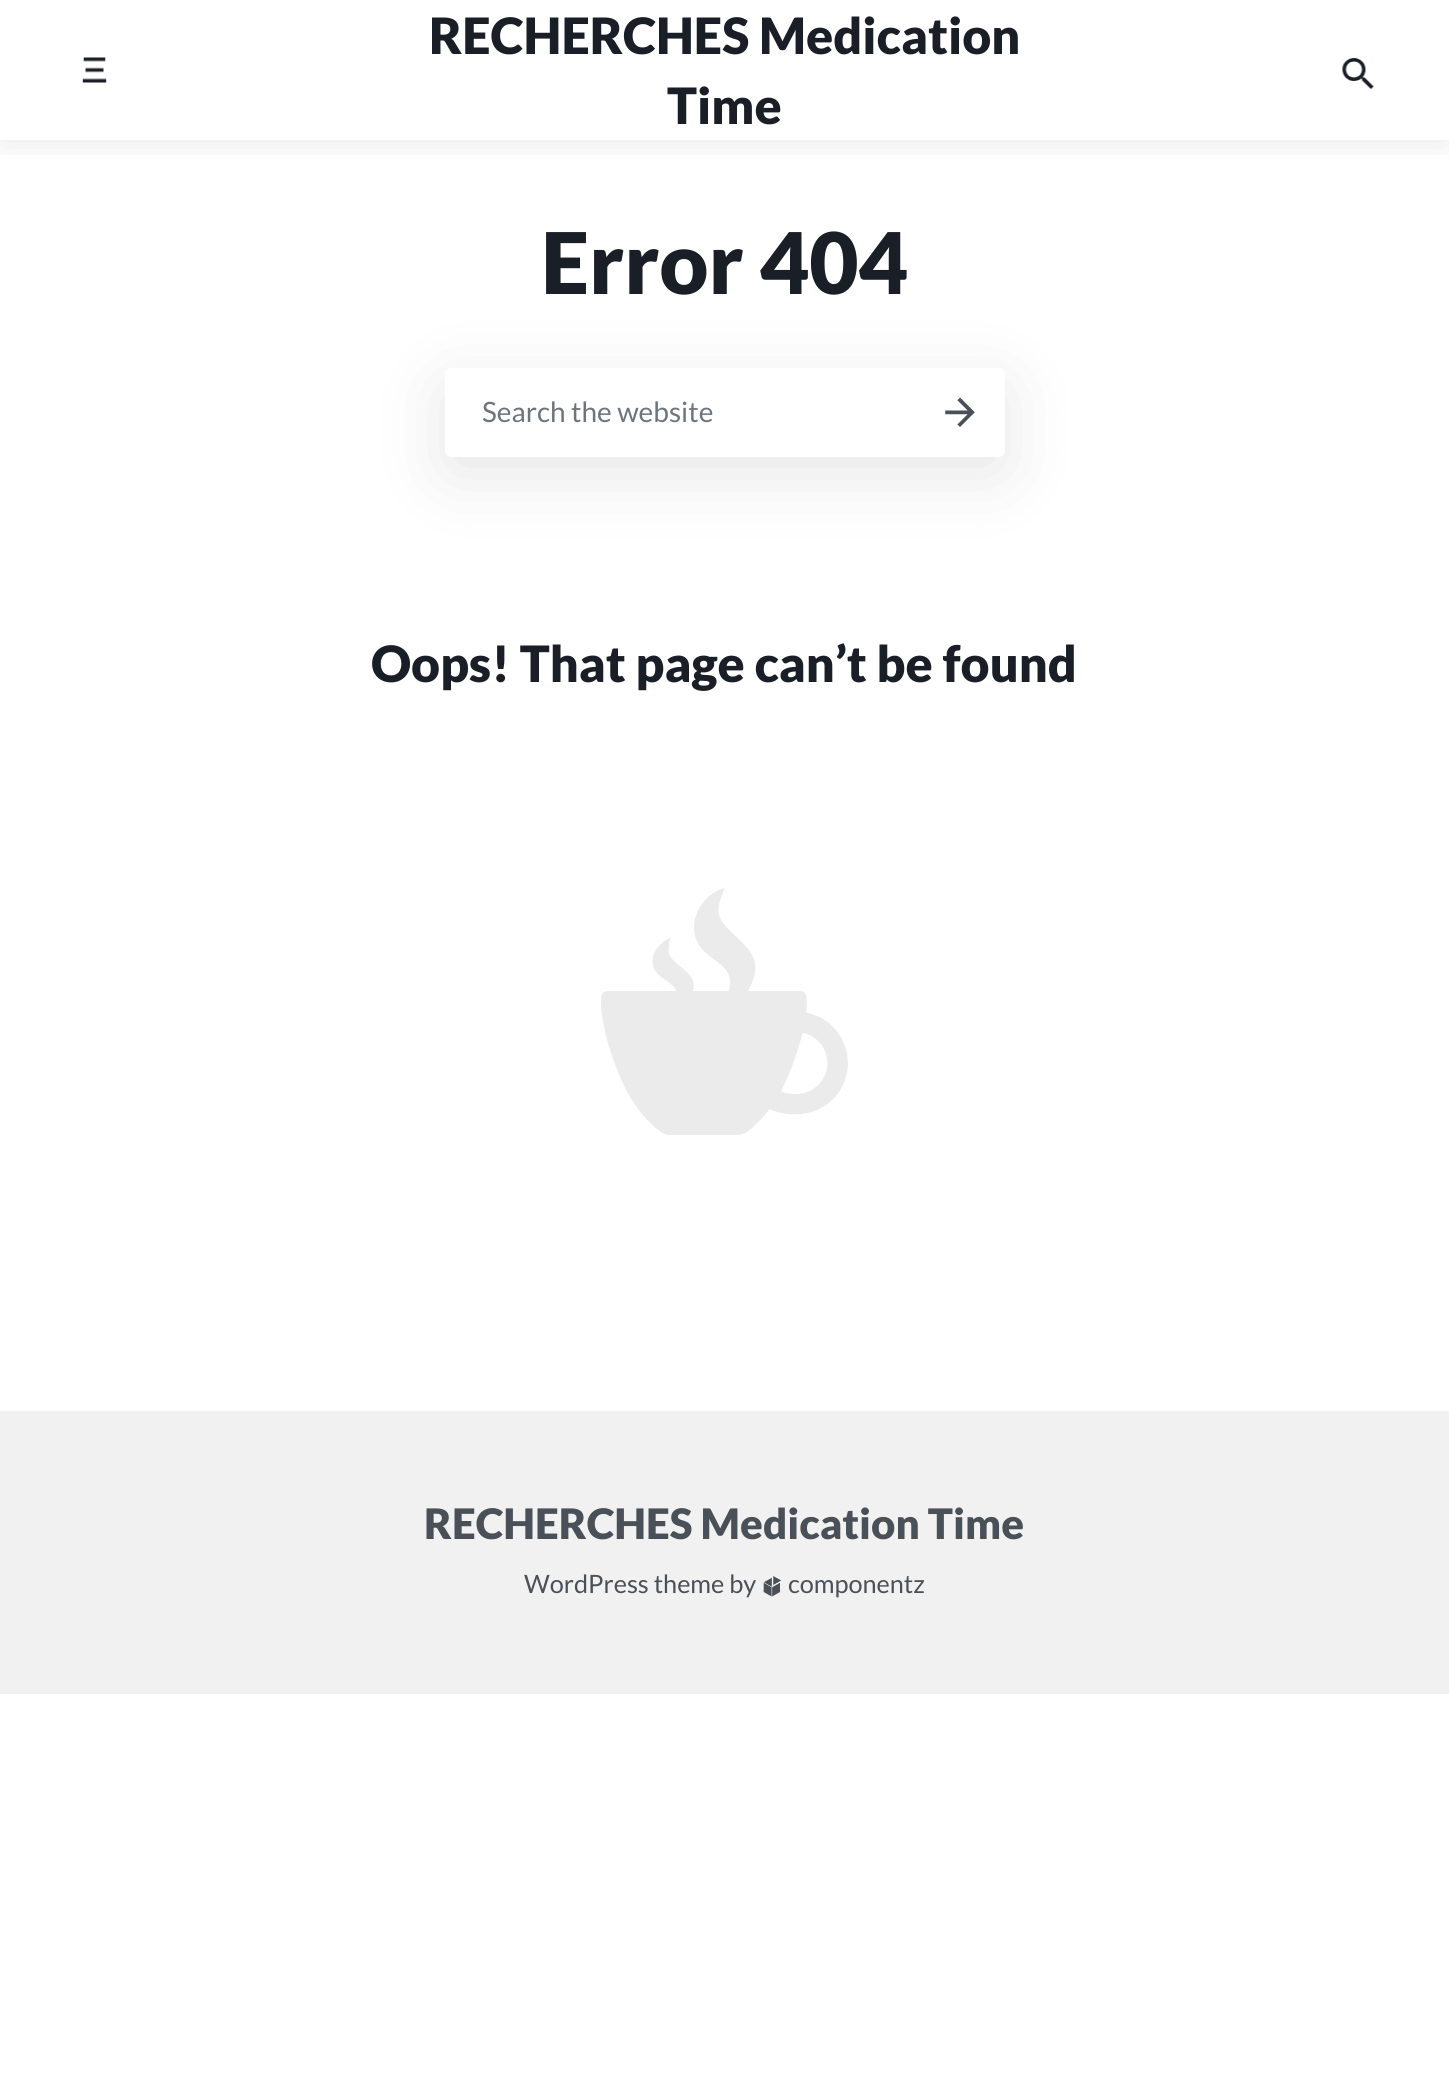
#include <cairo/cairo.h>
#include <math.h>
#include <stddef.h>

static cairo_t *cr;

static void use_color(int r, int g, int b) {
  cairo_set_source_rgb(cr, r / 255.0, g / 255.0, b / 255.0);
}

static void text(double x, double y, const char *s, const char *family, double size, int italic, int bold, int r, int g, int b) {
  cairo_select_font_face(cr, family, italic ? CAIRO_FONT_SLANT_ITALIC : CAIRO_FONT_SLANT_NORMAL,
    bold ? CAIRO_FONT_WEIGHT_BOLD : CAIRO_FONT_WEIGHT_NORMAL);
  cairo_set_font_size(cr, size);
  use_color(r, g, b);
  cairo_move_to(cr, x, y);
  cairo_show_text(cr, s);
}

static void box(double x, double y, double w, double h, int r, int g, int b) {
  use_color(r, g, b);
  cairo_rectangle(cr, x, y, w, h);
  cairo_fill(cr);
}

static void round_rect(double x, double y, double w, double h, double r) {
  cairo_new_sub_path(cr);
  cairo_arc(cr, x + w - r, y + h - r, r, 0, M_PI / 2);
  cairo_arc(cr, x + r, y + h - r, r, M_PI / 2, M_PI);
  cairo_arc(cr, x + r, y + r, r, M_PI, 1.5 * M_PI);
  cairo_arc(cr, x + w - r, y + r, r, 1.5 * M_PI, 2 * M_PI);
  cairo_close_path(cr);
}

static void shadow(double x, double y, double w, double h, double r, double blur, double alpha) {
  cairo_push_group_with_content(cr, CAIRO_CONTENT_ALPHA);
  cairo_set_operator(cr, CAIRO_OPERATOR_SOURCE);
  for (int i = 15; i >= -15 && fmin(w, h) + blur * i / 3 > 0; i -= 2) {
    double e = blur * i / 6;
    cairo_set_source_rgba(cr, 0, 0, 0, alpha * erfc((i - 1) / 8.5) / 2);
    round_rect(x - e, y - e, w + 2 * e, h + 2 * e, fmax(0, fmin(r + e + blur * .6, fmin(w, h) / 2 + e)));
    cairo_fill(cr);
  }
  cairo_pattern_t *soft = cairo_pop_group(cr);
  cairo_mask(cr, soft);
  cairo_pattern_destroy(soft);
}

static void picture(const char *path, double x, double y, double w, double h) {
  cairo_surface_t *image = cairo_image_surface_create_from_png(path);
  cairo_save(cr);
  cairo_set_source_surface(cr, image, x, y);
  cairo_rectangle(cr, x, y, w, h);
  cairo_fill(cr);
  cairo_restore(cr);
  cairo_surface_destroy(image);
}

static void draw(void) {
  use_color(255, 255, 255);
  cairo_paint(cr);
  cairo_save(cr);
  cairo_rectangle(cr, 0, 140, 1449, 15);
  cairo_clip(cr);
  use_color(0, 0, 0);
  shadow(0, 0, 1449, 140, 0, 17.5, 0.1);
  cairo_restore(cr);
  picture("img_01.png", 82, 57, 25, 26);
  picture("img_02.png", 1342, 58, 32, 31);
  cairo_save(cr);
  cairo_set_fill_rule(cr, CAIRO_FILL_RULE_EVEN_ODD);
  cairo_new_path(cr);
  cairo_move_to(cr, 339, 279);
  cairo_line_to(cr, 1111, 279);
  cairo_line_to(cr, 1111, 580);
  cairo_line_to(cr, 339, 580);
  cairo_close_path(cr);
  cairo_move_to(cr, 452, 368);
  cairo_line_to(cr, 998, 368);
  cairo_curve_to(cr, 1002, 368, 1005, 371, 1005, 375);
  cairo_line_to(cr, 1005, 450);
  cairo_curve_to(cr, 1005, 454, 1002, 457, 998, 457);
  cairo_line_to(cr, 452, 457);
  cairo_curve_to(cr, 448, 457, 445, 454, 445, 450);
  cairo_line_to(cr, 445, 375);
  cairo_curve_to(cr, 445, 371, 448, 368, 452, 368);
  cairo_close_path(cr);
  cairo_clip(cr);
  use_color(0, 0, 0);
  shadow(445, 385, 560, 89, 7, 35, 0.1);
  cairo_restore(cr);
  round_rect(447, 370, 556, 85, 5);
  use_color(255, 255, 255);
  cairo_set_line_width(cr, 4);
  cairo_stroke(cr);
  picture("img_03.png", 945, 397, 30, 30);
  picture("img_04.png", 601, 888, 247, 247);
  box(0, 1411, 1449, 283, 241, 241, 241);
  picture("img_05.png", 763, 1576, 18, 21);
  text(429, 54, "RECHERCHES Medication", "Lato Black", 50.1, 0, 0, 25, 30, 39);
  text(667, 124, "Time", "Lato Black", 50.1, 0, 0, 25, 30, 39);
  text(541, 294, "Error 404", "Lato Black", 85, 0, 0, 25, 30, 39);
  text(482, 422, "Search the website", "Lato", 28, 0, 0, 108, 117, 125);
  text(371, 682, "Oops! That page can’t be found", "Lato Black", 50.1, 0, 0, 25, 30, 39);
  text(424, 1539, "RECHERCHES Medication Time", "Lato Black", 42, 0, 0, 73, 80, 87);
  text(524, 1593, "WordPress theme by", "Lato", 25.25, 0, 0, 73, 80, 87);
  text(788, 1593, "componentz", "Lato", 25.25, 0, 0, 73, 80, 87);
}

int main(void) {
  cairo_surface_t *surface = cairo_image_surface_create(CAIRO_FORMAT_RGB24, 1449, 2097);
  cr = cairo_create(surface);
  cairo_font_options_t *options = cairo_font_options_create();
  cairo_font_options_set_hint_metrics(options, CAIRO_HINT_METRICS_OFF);
  cairo_font_options_set_hint_style(options, CAIRO_HINT_STYLE_NONE);
  cairo_set_font_options(cr, options);
  cairo_set_miter_limit(cr, 4);
  draw();
  cairo_surface_write_to_png(surface, "out.png");
  cairo_font_options_destroy(options);
  cairo_destroy(cr);
  cairo_surface_destroy(surface);
  return 0;
}
